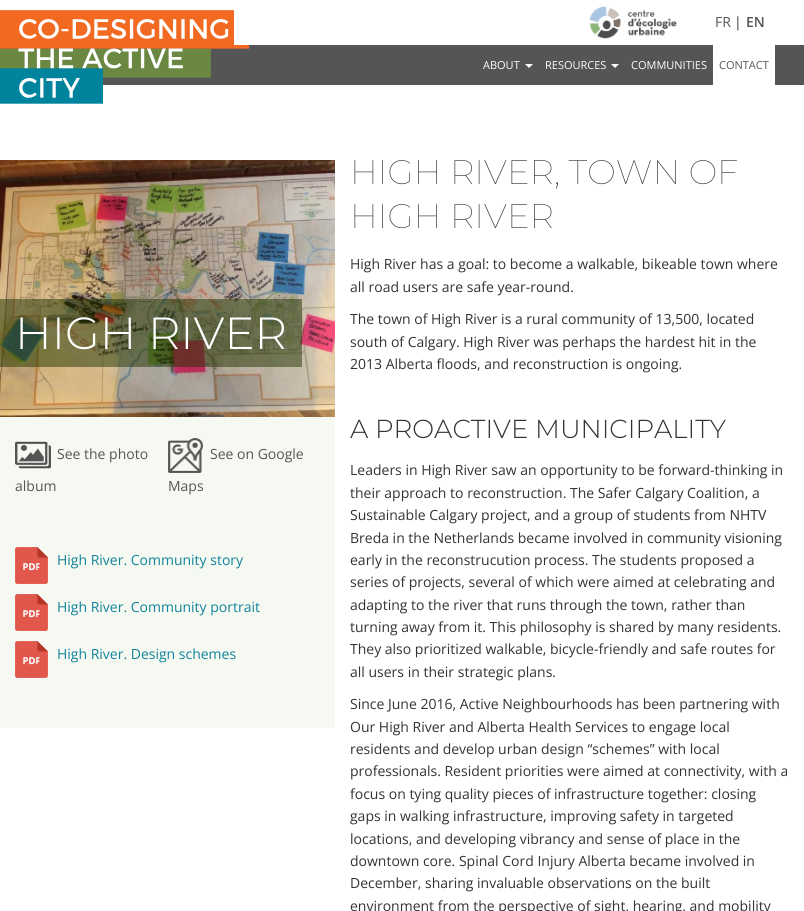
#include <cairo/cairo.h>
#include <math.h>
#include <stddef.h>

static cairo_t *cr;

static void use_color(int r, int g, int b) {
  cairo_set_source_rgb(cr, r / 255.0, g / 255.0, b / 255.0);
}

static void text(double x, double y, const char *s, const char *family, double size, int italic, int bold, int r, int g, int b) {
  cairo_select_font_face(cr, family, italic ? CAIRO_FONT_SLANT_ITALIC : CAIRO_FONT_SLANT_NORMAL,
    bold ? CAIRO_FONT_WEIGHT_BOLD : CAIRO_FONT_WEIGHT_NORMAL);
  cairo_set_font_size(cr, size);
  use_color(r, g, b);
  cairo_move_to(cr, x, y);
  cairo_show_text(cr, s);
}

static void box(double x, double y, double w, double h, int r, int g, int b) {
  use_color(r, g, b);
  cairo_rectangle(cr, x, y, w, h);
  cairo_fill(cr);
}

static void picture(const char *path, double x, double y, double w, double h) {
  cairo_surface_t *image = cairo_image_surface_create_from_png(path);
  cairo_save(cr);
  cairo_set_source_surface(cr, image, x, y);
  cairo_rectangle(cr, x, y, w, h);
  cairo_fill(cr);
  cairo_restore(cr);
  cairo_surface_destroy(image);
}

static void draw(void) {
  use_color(255, 255, 255);
  cairo_paint(cr);
  box(0, 45, 804, 40, 85, 85, 85);
  picture("img_01.png", 0, 10, 249, 94);
  box(234, 10, 15, 35, 255, 255, 255);
  picture("img_02.png", 589, 6, 88, 33);
  cairo_new_path(cr);
  cairo_move_to(cr, 525, 64);
  cairo_line_to(cr, 533, 64);
  cairo_line_to(cr, 529, 68);
  cairo_close_path(cr);
  cairo_fill(cr);
  cairo_new_path(cr);
  cairo_move_to(cr, 611, 64);
  cairo_line_to(cr, 619, 64);
  cairo_line_to(cr, 615, 68);
  cairo_close_path(cr);
  cairo_fill(cr);
  box(713, 45, 62, 40, 255, 255, 255);
  box(0, 417, 335, 311, 246, 249, 242);
  picture("img_03.png", 0, 160, 335, 257);
  cairo_set_source_rgba(cr, 0.129, 0.208, 0.004, 0.5);
  cairo_rectangle(cr, 0, 299, 302, 68);
  cairo_fill(cr);
  picture("img_04.png", 15, 441, 36, 28);
  picture("img_05.png", 168, 438, 35, 35);
  picture("img_06.png", 15, 547, 33, 37);
  picture("img_06.png", 15, 594, 33, 37);
  picture("img_06.png", 15, 641, 33, 37);
  text(715, 27, "FR", "Open Sans", 14, 0, 0, 85, 85, 85);
  text(734, 27, "|", "Open Sans", 14, 0, 0, 51, 51, 51);
  text(746, 27, "EN", "Open Sans SemiBold", 14, 0, 0, 85, 85, 85);
  text(483, 69, "ABOUT", "Open Sans", 11, 0, 0, 255, 255, 255);
  text(545, 69, "RESOURCES", "Open Sans", 11, 0, 0, 255, 255, 255);
  text(631, 69, "COMMUNITIES", "Open Sans", 11, 0, 0, 255, 255, 255);
  text(719, 69, "CONTACT", "Open Sans", 11, 0, 0, 85, 85, 85);
  text(15, 349, "HIGH RIVER", "Montserrat Light", 45, 0, 0, 255, 255, 255);
  text(57, 459, "See the photo", "Open Sans", 14, 0, 0, 85, 85, 85);
  text(15, 491, "album", "Open Sans", 14, 0, 0, 85, 85, 85);
  text(210, 459, "See on Google", "Open Sans", 14, 0, 0, 85, 85, 85);
  text(168, 491, "Maps", "Open Sans", 14, 0, 0, 85, 85, 85);
  text(57, 565, "High River. Community story", "Open Sans", 14, 0, 0, 17, 131, 154);
  text(57, 612, "High River. Community portrait", "Open Sans", 14, 0, 0, 17, 131, 154);
  text(57, 659, "High River. Design schemes", "Open Sans", 14, 0, 0, 17, 131, 154);
  text(350, 184, "HIGH RIVER, TOWN OF", "Montserrat Thin", 34, 0, 0, 51, 51, 51);
  text(350, 228, "HIGH RIVER", "Montserrat Thin", 34, 0, 0, 51, 51, 51);
  text(350, 269, "High River has a goal: to become a walkable, bikeable town where", "Open Sans", 14, 0, 0, 51, 51, 51);
  text(350, 292, "all road users are safe year-round.", "Open Sans", 14, 0, 0, 51, 51, 51);
  text(350, 324, "The town of High River is a rural community of 13,500, located", "Open Sans", 14, 0, 0, 51, 51, 51);
  text(350, 347, "south of Calgary. High River was perhaps the hardest hit in the", "Open Sans", 14, 0, 0, 51, 51, 51);
  text(350, 369, "2013 Alberta floods, and reconstruction is ongoing.", "Open Sans", 14, 0, 0, 51, 51, 51);
  text(350, 438, "A PROACTIVE MUNICIPALITY", "Montserrat Light", 26, 0, 0, 51, 51, 51);
  text(350, 475, "Leaders in High River saw an opportunity to be forward-thinking in", "Open Sans", 14, 0, 0, 51, 51, 51);
  text(350, 498, "their approach to reconstruction. The Safer Calgary Coalition, a", "Open Sans", 14, 0, 0, 51, 51, 51);
  text(350, 520, "Sustainable Calgary project, and a group of students from NHTV", "Open Sans", 14, 0, 0, 51, 51, 51);
  text(350, 543, "Breda in the Netherlands became involved in community visioning", "Open Sans", 14, 0, 0, 51, 51, 51);
  text(350, 565, "early in the reconstrucution process. The students proposed a", "Open Sans", 14, 0, 0, 51, 51, 51);
  text(350, 587, "series of projects, several of which were aimed at celebrating and", "Open Sans", 14, 0, 0, 51, 51, 51);
  text(350, 610, "adapting to the river that runs through the town, rather than", "Open Sans", 14, 0, 0, 51, 51, 51);
  text(350, 632, "turning away from it. This philosophy is shared by many residents.", "Open Sans", 14, 0, 0, 51, 51, 51);
  text(350, 654, "They also prioritized walkable, bicycle-friendly and safe routes for", "Open Sans", 14, 0, 0, 51, 51, 51);
  text(350, 677, "all users in their strategic plans.", "Open Sans", 14, 0, 0, 51, 51, 51);
  text(350, 709, "Since June 2016, Active Neighbourhoods has been partnering with", "Open Sans", 14, 0, 0, 51, 51, 51);
  text(350, 732, "Our High River and Alberta Health Services to engage local", "Open Sans", 14, 0, 0, 51, 51, 51);
  text(350, 754, "residents and develop urban design “schemes” with local", "Open Sans", 14, 0, 0, 51, 51, 51);
  text(350, 776, "professionals. Resident priorities were aimed at connectivity, with a", "Open Sans", 14, 0, 0, 51, 51, 51);
  text(350, 799, "focus on tying quality pieces of infrastructure together: closing", "Open Sans", 14, 0, 0, 51, 51, 51);
  text(350, 821, "gaps in walking infrastructure, improving safety in targeted", "Open Sans", 14, 0, 0, 51, 51, 51);
  text(350, 844, "locations, and developing vibrancy and sense of place in the", "Open Sans", 14, 0, 0, 51, 51, 51);
  text(350, 866, "downtown core. Spinal Cord Injury Alberta became involved in", "Open Sans", 14, 0, 0, 51, 51, 51);
  text(350, 888, "December, sharing invaluable observations on the built", "Open Sans", 14, 0, 0, 51, 51, 51);
  text(350, 911, "environment from the perspective of sight, hearing, and mobility", "Open Sans", 14, 0, 0, 51, 51, 51);
}

int main(void) {
  cairo_surface_t *surface = cairo_image_surface_create(CAIRO_FORMAT_RGB24, 804, 911);
  cr = cairo_create(surface);
  cairo_font_options_t *options = cairo_font_options_create();
  cairo_font_options_set_hint_metrics(options, CAIRO_HINT_METRICS_OFF);
  cairo_font_options_set_hint_style(options, CAIRO_HINT_STYLE_NONE);
  cairo_set_font_options(cr, options);
  cairo_set_miter_limit(cr, 4);
  draw();
  cairo_surface_write_to_png(surface, "out.png");
  cairo_font_options_destroy(options);
  cairo_destroy(cr);
  cairo_surface_destroy(surface);
  return 0;
}
